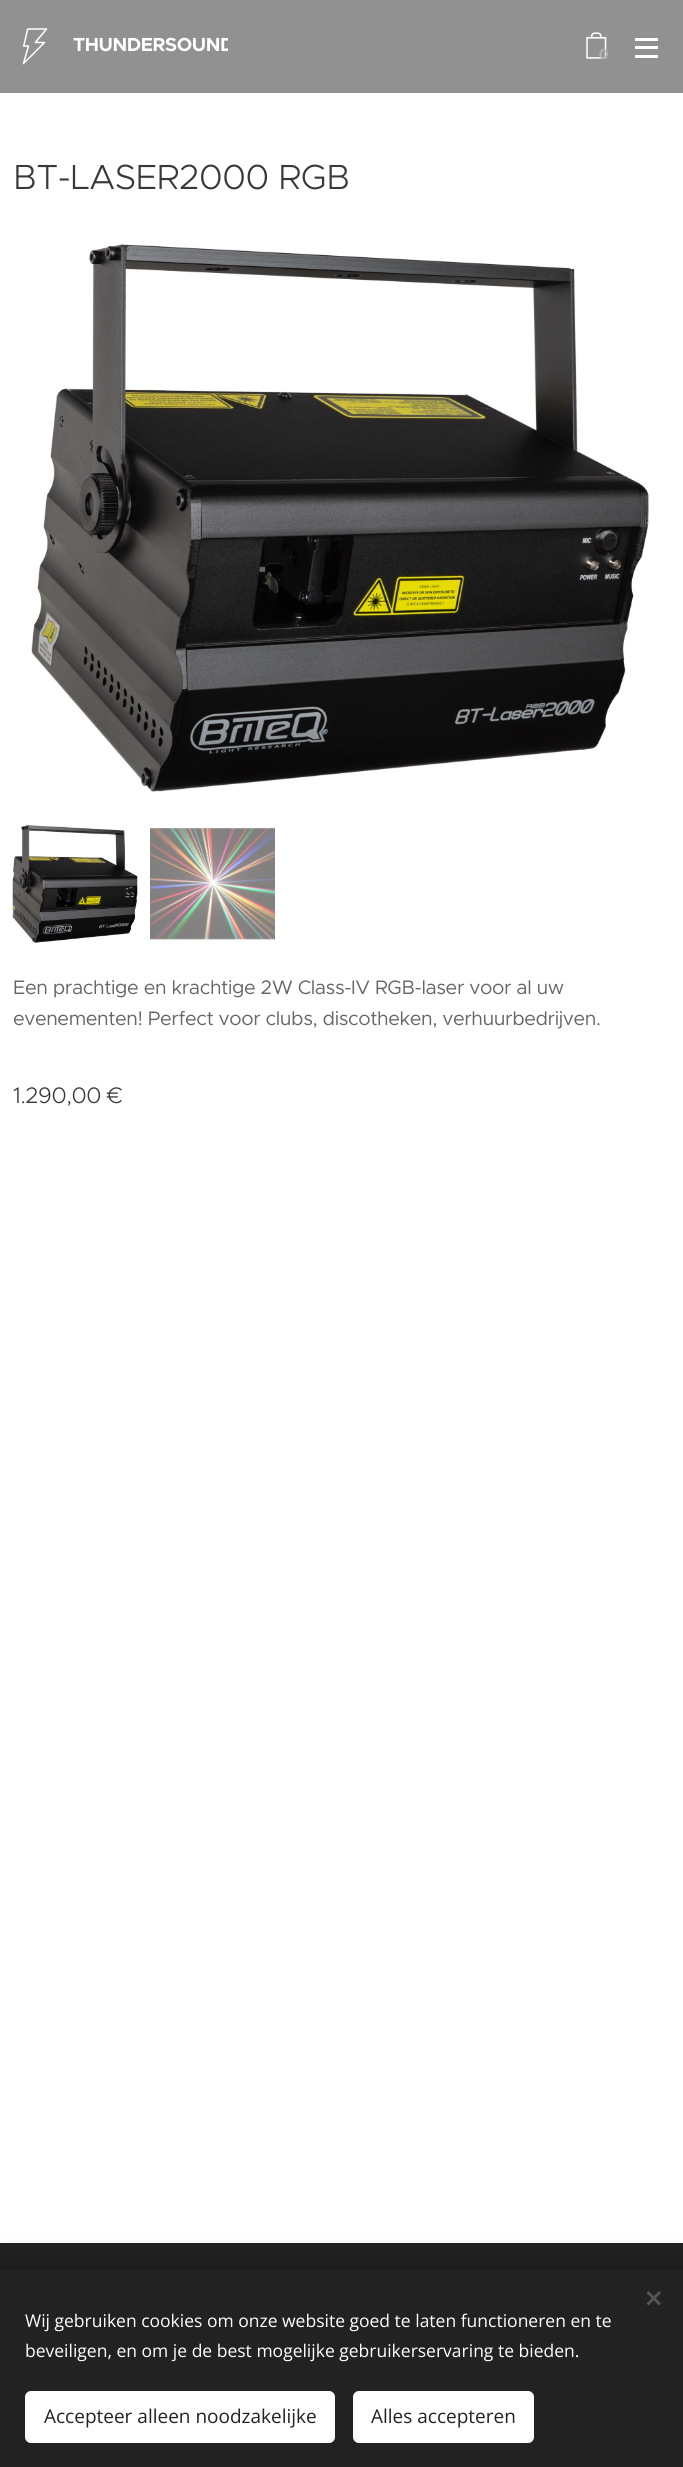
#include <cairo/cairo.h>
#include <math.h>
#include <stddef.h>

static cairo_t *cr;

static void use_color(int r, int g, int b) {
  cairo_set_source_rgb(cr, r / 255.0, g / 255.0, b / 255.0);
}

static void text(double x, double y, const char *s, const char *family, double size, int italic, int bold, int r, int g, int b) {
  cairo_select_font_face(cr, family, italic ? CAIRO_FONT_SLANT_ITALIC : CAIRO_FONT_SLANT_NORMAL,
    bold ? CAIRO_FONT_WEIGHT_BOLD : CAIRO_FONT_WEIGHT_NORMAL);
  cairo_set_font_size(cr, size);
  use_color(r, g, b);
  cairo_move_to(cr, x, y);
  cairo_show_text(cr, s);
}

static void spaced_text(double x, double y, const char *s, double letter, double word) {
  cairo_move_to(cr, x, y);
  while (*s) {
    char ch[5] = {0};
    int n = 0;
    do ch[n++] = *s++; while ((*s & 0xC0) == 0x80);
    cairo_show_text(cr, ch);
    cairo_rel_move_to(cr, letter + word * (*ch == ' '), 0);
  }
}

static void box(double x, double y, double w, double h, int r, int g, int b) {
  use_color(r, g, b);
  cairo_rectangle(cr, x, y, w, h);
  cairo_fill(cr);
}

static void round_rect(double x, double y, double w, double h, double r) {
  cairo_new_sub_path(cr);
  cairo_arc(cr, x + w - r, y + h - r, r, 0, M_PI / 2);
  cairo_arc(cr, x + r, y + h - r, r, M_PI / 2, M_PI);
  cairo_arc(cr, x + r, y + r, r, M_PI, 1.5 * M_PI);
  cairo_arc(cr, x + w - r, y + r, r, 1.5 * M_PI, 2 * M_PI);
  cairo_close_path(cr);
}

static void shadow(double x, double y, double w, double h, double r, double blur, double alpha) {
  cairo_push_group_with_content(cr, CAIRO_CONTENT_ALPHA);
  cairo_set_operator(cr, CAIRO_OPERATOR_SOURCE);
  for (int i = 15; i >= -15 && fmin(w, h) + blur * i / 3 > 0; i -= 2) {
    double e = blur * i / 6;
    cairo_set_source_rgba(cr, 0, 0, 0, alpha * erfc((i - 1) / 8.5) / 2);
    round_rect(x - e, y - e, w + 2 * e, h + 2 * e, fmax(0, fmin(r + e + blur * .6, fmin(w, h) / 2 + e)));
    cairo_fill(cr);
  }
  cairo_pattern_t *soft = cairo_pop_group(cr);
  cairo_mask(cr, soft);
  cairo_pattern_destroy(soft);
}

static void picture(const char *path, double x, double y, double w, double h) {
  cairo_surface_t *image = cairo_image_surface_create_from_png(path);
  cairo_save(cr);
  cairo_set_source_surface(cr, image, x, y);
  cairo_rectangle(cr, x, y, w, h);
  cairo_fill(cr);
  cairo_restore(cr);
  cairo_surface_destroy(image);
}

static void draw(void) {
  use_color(255, 255, 255);
  cairo_paint(cr);
  box(0, 0, 683, 93, 145, 145, 145);
  picture("img_01.png", 22, 28, 26, 37);
  picture("img_02.png", 586, 32, 21, 27);
  box(635, 46, 23, 3, 255, 255, 255);
  box(635, 38, 23, 3, 255, 255, 255);
  box(635, 55, 23, 3, 255, 255, 255);
  picture("img_03.png", 31, 244, 618, 548);
  picture("img_04.png", 12, 825, 126, 118);
  picture("img_05.png", 150, 827, 125, 113);
  box(0, 2243, 683, 26, 34, 34, 34);
  use_color(0, 0, 0);
  shadow(0, 2269, 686, 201, 0, 15.5, 0.33);
  box(0, 2269, 683, 198, 34, 34, 34);
  use_color(85, 85, 85);
  cairo_new_path(cr);
  cairo_move_to(cr, 646.5, 2303.5);
  cairo_line_to(cr, 659, 2291);
  cairo_line_to(cr, 661, 2293);
  cairo_line_to(cr, 648.5, 2305.5);
  cairo_close_path(cr);
  cairo_fill(cr);
  cairo_new_path(cr);
  cairo_move_to(cr, 648.5, 2291);
  cairo_line_to(cr, 661, 2303.5);
  cairo_line_to(cr, 659, 2305.5);
  cairo_line_to(cr, 646.5, 2293);
  cairo_close_path(cr);
  cairo_fill(cr);
  use_color(255, 255, 255);
  round_rect(25, 2391, 310, 52, 6);
  cairo_fill(cr);
  round_rect(353, 2391, 181, 52, 6);
  cairo_fill(cr);
  cairo_save(cr);
  cairo_rectangle(cr, 69, 31, 159, 30);
  cairo_clip(cr);
  cairo_select_font_face(cr, "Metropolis", CAIRO_FONT_SLANT_NORMAL, CAIRO_FONT_WEIGHT_BOLD);
  cairo_set_font_size(cr, 19);
  spaced_text(73, 51, "THUNDERSOUND", -0.4, 0);
  cairo_restore(cr);
  text(599, 59, "0", "Montserrat", 14, 0, 1, 177, 177, 177);
  cairo_select_font_face(cr, "Metropolis Light", CAIRO_FONT_SLANT_NORMAL, CAIRO_FONT_WEIGHT_NORMAL);
  cairo_set_font_size(cr, 35);
  use_color(57, 57, 57);
  spaced_text(13, 189, "BT-LASER2000 RGB", -0.4, 0);
  cairo_select_font_face(cr, "Metropolis", CAIRO_FONT_SLANT_NORMAL, CAIRO_FONT_WEIGHT_NORMAL);
  cairo_set_font_size(cr, 19.6);
  use_color(102, 102, 102);
  spaced_text(13, 994, "Een prachtige en krachtige 2W Class-IV RGB-laser voor al uw", -0.4, 0);
  spaced_text(13, 1025, "evenementen! Perfect voor clubs, discotheken, verhuurbedrijven.", -0.4, 0);
  cairo_select_font_face(cr, "Metropolis Light", CAIRO_FONT_SLANT_NORMAL, CAIRO_FONT_WEIGHT_NORMAL);
  cairo_set_font_size(cr, 22.5);
  use_color(57, 57, 57);
  spaced_text(13, 1103, "1.290,00 €", -0.4, 0);
  text(25, 2327, "Wij gebruiken cookies om onze website goed te laten functioneren en te", "Open Sans", 17.5, 0, 0, 255, 255, 255);
  text(25, 2357, "beveiligen, en om je de best mogelijke gebruikerservaring te bieden.", "Open Sans", 17.5, 0, 0, 255, 255, 255);
  text(44, 2423, "Accepteer alleen noodzakelijke", "Open Sans", 19, 0, 0, 34, 34, 34);
  text(371, 2423, "Alles accepteren", "Open Sans", 19, 0, 0, 34, 34, 34);
}

int main(void) {
  cairo_surface_t *surface = cairo_image_surface_create(CAIRO_FORMAT_RGB24, 683, 2467);
  cr = cairo_create(surface);
  cairo_font_options_t *options = cairo_font_options_create();
  cairo_font_options_set_hint_metrics(options, CAIRO_HINT_METRICS_OFF);
  cairo_font_options_set_hint_style(options, CAIRO_HINT_STYLE_NONE);
  cairo_set_font_options(cr, options);
  cairo_set_miter_limit(cr, 4);
  draw();
  cairo_surface_write_to_png(surface, "out.png");
  cairo_font_options_destroy(options);
  cairo_destroy(cr);
  cairo_surface_destroy(surface);
  return 0;
}
